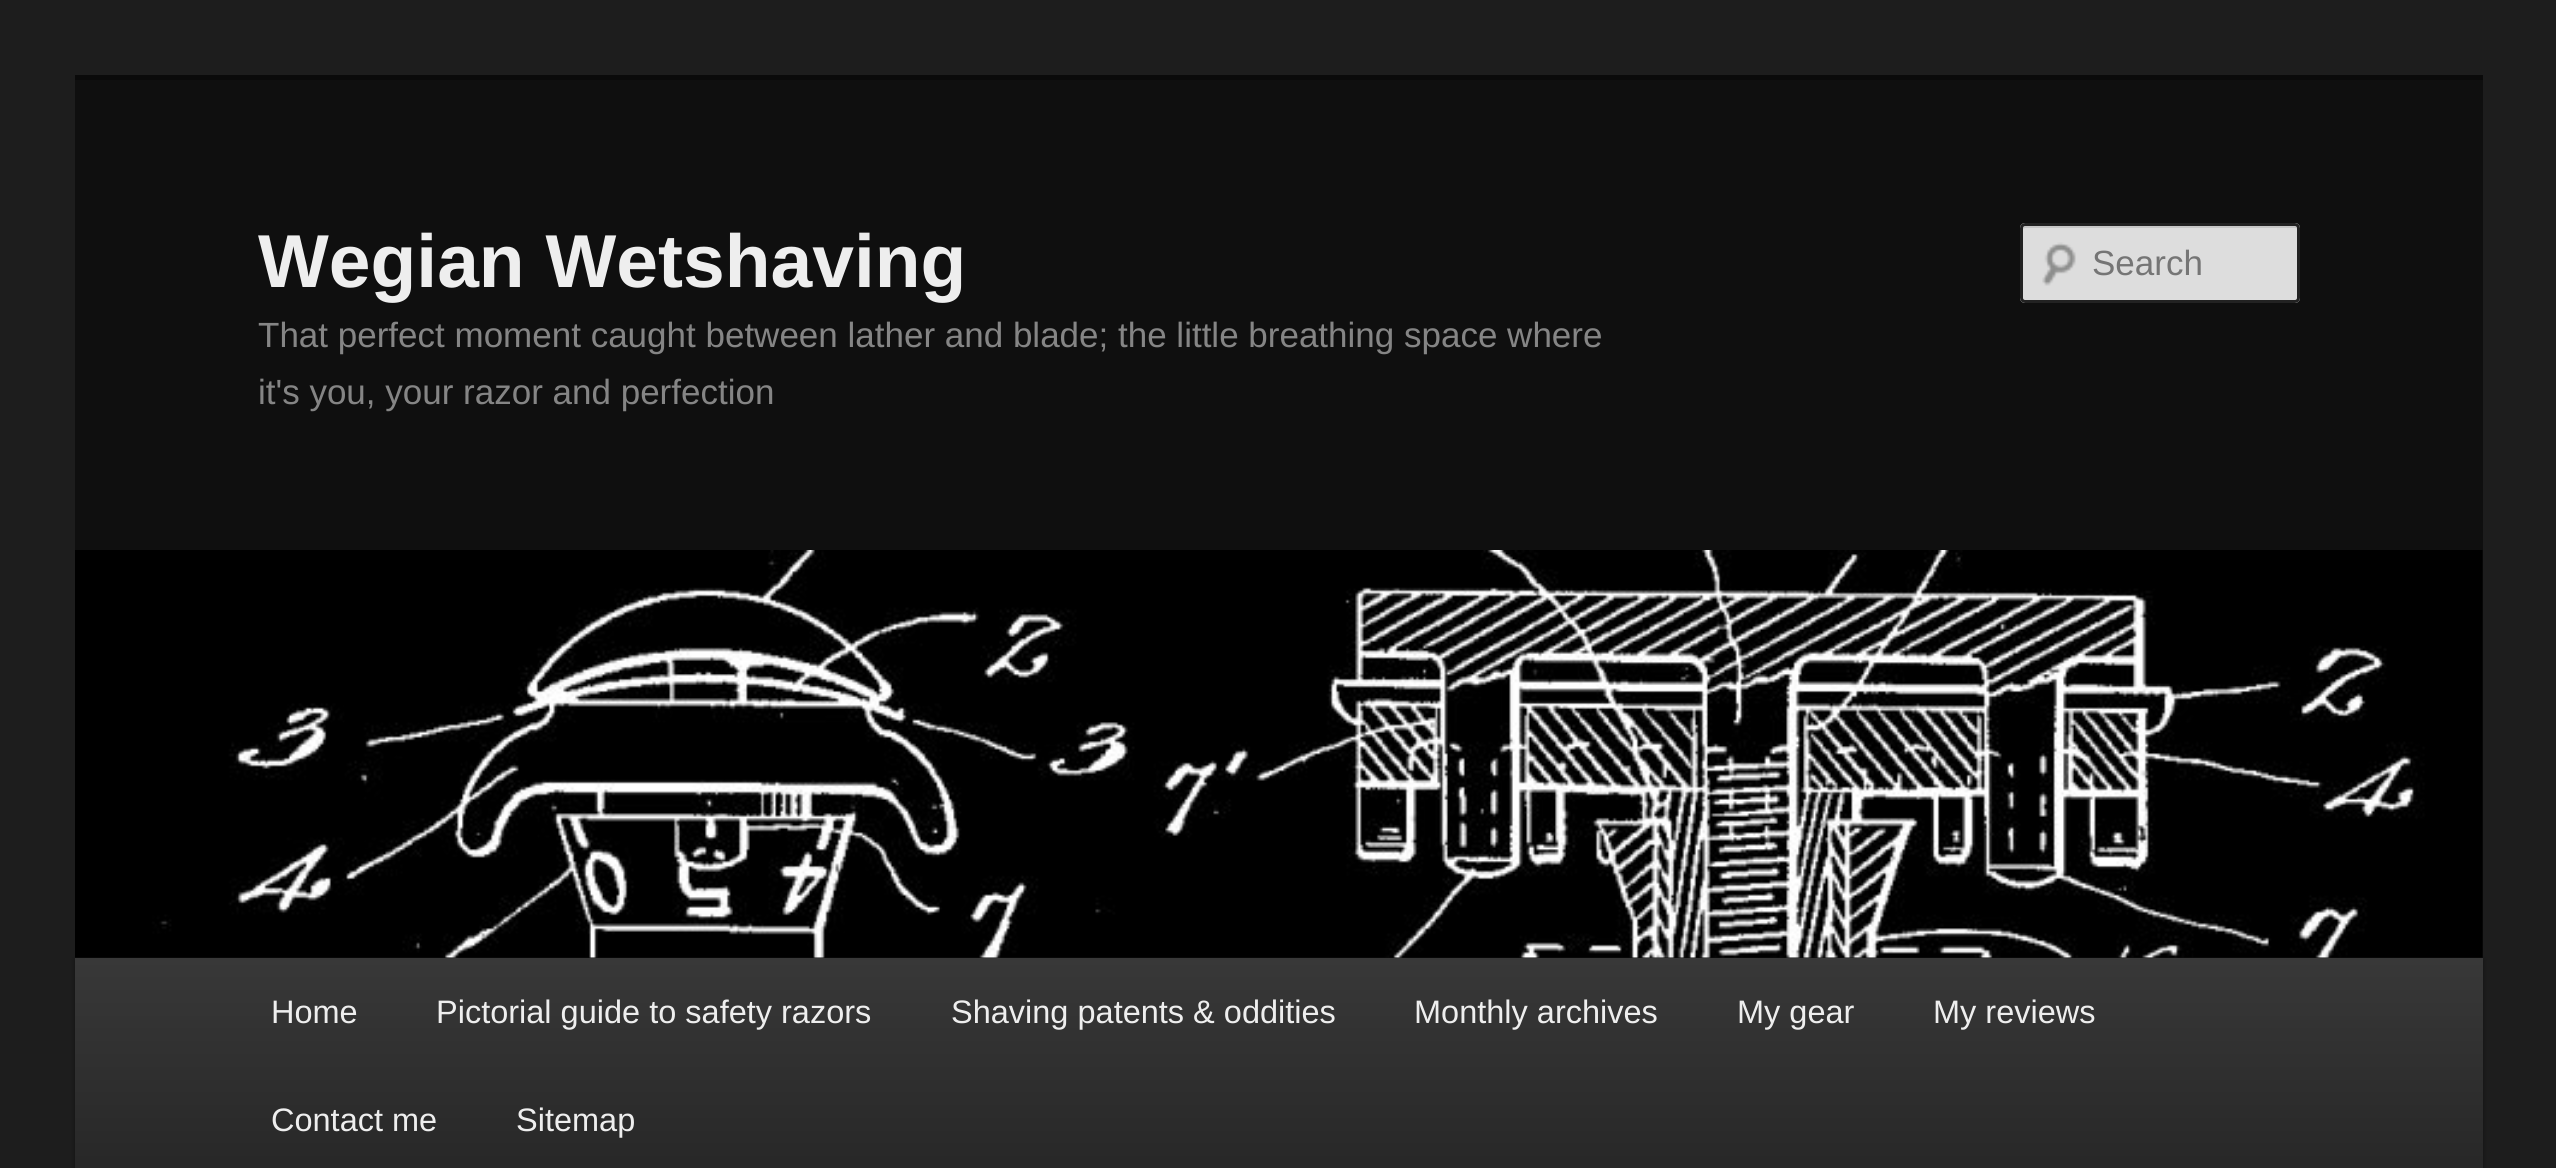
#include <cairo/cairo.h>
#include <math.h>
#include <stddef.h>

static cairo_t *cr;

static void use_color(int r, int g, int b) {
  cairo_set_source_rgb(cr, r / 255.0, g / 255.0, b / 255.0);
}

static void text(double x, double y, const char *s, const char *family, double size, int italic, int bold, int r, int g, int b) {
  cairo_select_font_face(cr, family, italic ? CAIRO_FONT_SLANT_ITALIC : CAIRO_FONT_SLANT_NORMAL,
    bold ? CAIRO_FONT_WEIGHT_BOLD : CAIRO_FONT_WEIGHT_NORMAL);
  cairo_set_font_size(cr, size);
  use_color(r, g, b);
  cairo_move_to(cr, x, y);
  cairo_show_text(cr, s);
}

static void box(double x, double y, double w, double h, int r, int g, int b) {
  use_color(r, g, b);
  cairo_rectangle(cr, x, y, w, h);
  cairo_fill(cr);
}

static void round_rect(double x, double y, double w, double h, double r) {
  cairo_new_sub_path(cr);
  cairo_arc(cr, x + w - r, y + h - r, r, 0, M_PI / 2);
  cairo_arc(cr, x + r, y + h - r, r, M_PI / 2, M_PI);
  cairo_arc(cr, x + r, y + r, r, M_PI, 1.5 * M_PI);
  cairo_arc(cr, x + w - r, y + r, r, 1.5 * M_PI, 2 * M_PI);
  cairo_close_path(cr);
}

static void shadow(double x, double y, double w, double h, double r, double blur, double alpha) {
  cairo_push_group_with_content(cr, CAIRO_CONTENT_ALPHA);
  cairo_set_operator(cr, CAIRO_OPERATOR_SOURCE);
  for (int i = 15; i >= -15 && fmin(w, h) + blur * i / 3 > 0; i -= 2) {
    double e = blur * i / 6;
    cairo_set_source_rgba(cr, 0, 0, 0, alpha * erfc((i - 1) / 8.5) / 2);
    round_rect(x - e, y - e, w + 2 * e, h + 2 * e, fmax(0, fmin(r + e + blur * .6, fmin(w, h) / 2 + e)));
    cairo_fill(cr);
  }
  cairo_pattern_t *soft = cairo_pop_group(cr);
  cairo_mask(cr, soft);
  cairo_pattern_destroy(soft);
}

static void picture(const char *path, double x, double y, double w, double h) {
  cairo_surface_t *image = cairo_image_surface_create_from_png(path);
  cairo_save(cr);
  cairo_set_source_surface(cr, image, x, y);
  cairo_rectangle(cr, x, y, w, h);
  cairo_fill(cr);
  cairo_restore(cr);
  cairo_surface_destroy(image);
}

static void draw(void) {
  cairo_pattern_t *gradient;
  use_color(29, 29, 29);
  cairo_paint(cr);
  box(75, 80, 2408, 878, 15, 15, 15);
  box(75, 75, 2408, 5, 10, 10, 10);
  use_color(221, 221, 221);
  round_rect(2020, 223, 280, 80, 5);
  cairo_fill(cr);
  picture("img_01.png", 2042, 242, 34, 44);
  use_color(199, 199, 199);
  cairo_new_path(cr);
  cairo_move_to(cr, 2025, 228);
  cairo_line_to(cr, 2295, 228);
  cairo_curve_to(cr, 2296, 228, 2298, 229, 2298, 230);
  cairo_curve_to(cr, 2298, 228, 2298, 226, 2296, 225);
  cairo_line_to(cr, 2026, 225);
  cairo_curve_to(cr, 2023, 225, 2023, 227, 2023, 229);
  cairo_close_path(cr);
  cairo_fill(cr);
  round_rect(2021.5, 224.5, 277, 77, 3.5);
  use_color(34, 34, 34);
  cairo_set_line_width(cr, 3);
  cairo_stroke(cr);
  use_color(0, 0, 0);
  shadow(75, 960, 2408, 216, 0, 2.5, 0.4);
  picture("img_02.png", 75, 550, 2408, 408);
  gradient = cairo_pattern_create_linear(1279, 957, 1279, 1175);
  cairo_pattern_add_color_stop_rgba(gradient, 0, 0.22, 0.22, 0.22, 1);
  cairo_pattern_add_color_stop_rgba(gradient, 1, 0.153, 0.153, 0.153, 1);
  cairo_set_source(cr, gradient);
  cairo_pattern_destroy(gradient);
  cairo_rectangle(cr, 75, 958, 2408, 210);
  cairo_fill(cr);
  text(258, 287, "Wegian Wetshaving", "Liberation Sans", 75, 0, 1, 238, 238, 238);
  text(258, 347, "That perfect moment caught between lather and blade; the little breathing space where", "Liberation Sans", 35, 0, 0, 133, 133, 133);
  text(258, 404, "it's you, your razor and perfection", "Liberation Sans", 35, 0, 0, 133, 133, 133);
  text(2092, 275, "Search", "Liberation Sans", 35, 0, 0, 117, 117, 117);
  text(271, 1023, "Home", "Liberation Sans", 32.5, 0, 0, 238, 238, 238);
  text(436, 1023, "Pictorial guide to safety razors", "Liberation Sans", 32.5, 0, 0, 238, 238, 238);
  text(951, 1023, "Shaving patents & oddities", "Liberation Sans", 32.5, 0, 0, 238, 238, 238);
  text(1414, 1023, "Monthly archives", "Liberation Sans", 32.5, 0, 0, 238, 238, 238);
  text(1737, 1023, "My gear", "Liberation Sans", 32.5, 0, 0, 238, 238, 238);
  text(1933, 1023, "My reviews", "Liberation Sans", 32.5, 0, 0, 238, 238, 238);
  text(271, 1131, "Contact me", "Liberation Sans", 32.5, 0, 0, 238, 238, 238);
  text(516, 1131, "Sitemap", "Liberation Sans", 32.5, 0, 0, 238, 238, 238);
}

int main(void) {
  cairo_surface_t *surface = cairo_image_surface_create(CAIRO_FORMAT_RGB24, 2556, 1168);
  cr = cairo_create(surface);
  cairo_font_options_t *options = cairo_font_options_create();
  cairo_font_options_set_hint_metrics(options, CAIRO_HINT_METRICS_OFF);
  cairo_font_options_set_hint_style(options, CAIRO_HINT_STYLE_NONE);
  cairo_set_font_options(cr, options);
  cairo_set_miter_limit(cr, 4);
  draw();
  cairo_surface_write_to_png(surface, "out.png");
  cairo_font_options_destroy(options);
  cairo_destroy(cr);
  cairo_surface_destroy(surface);
  return 0;
}
